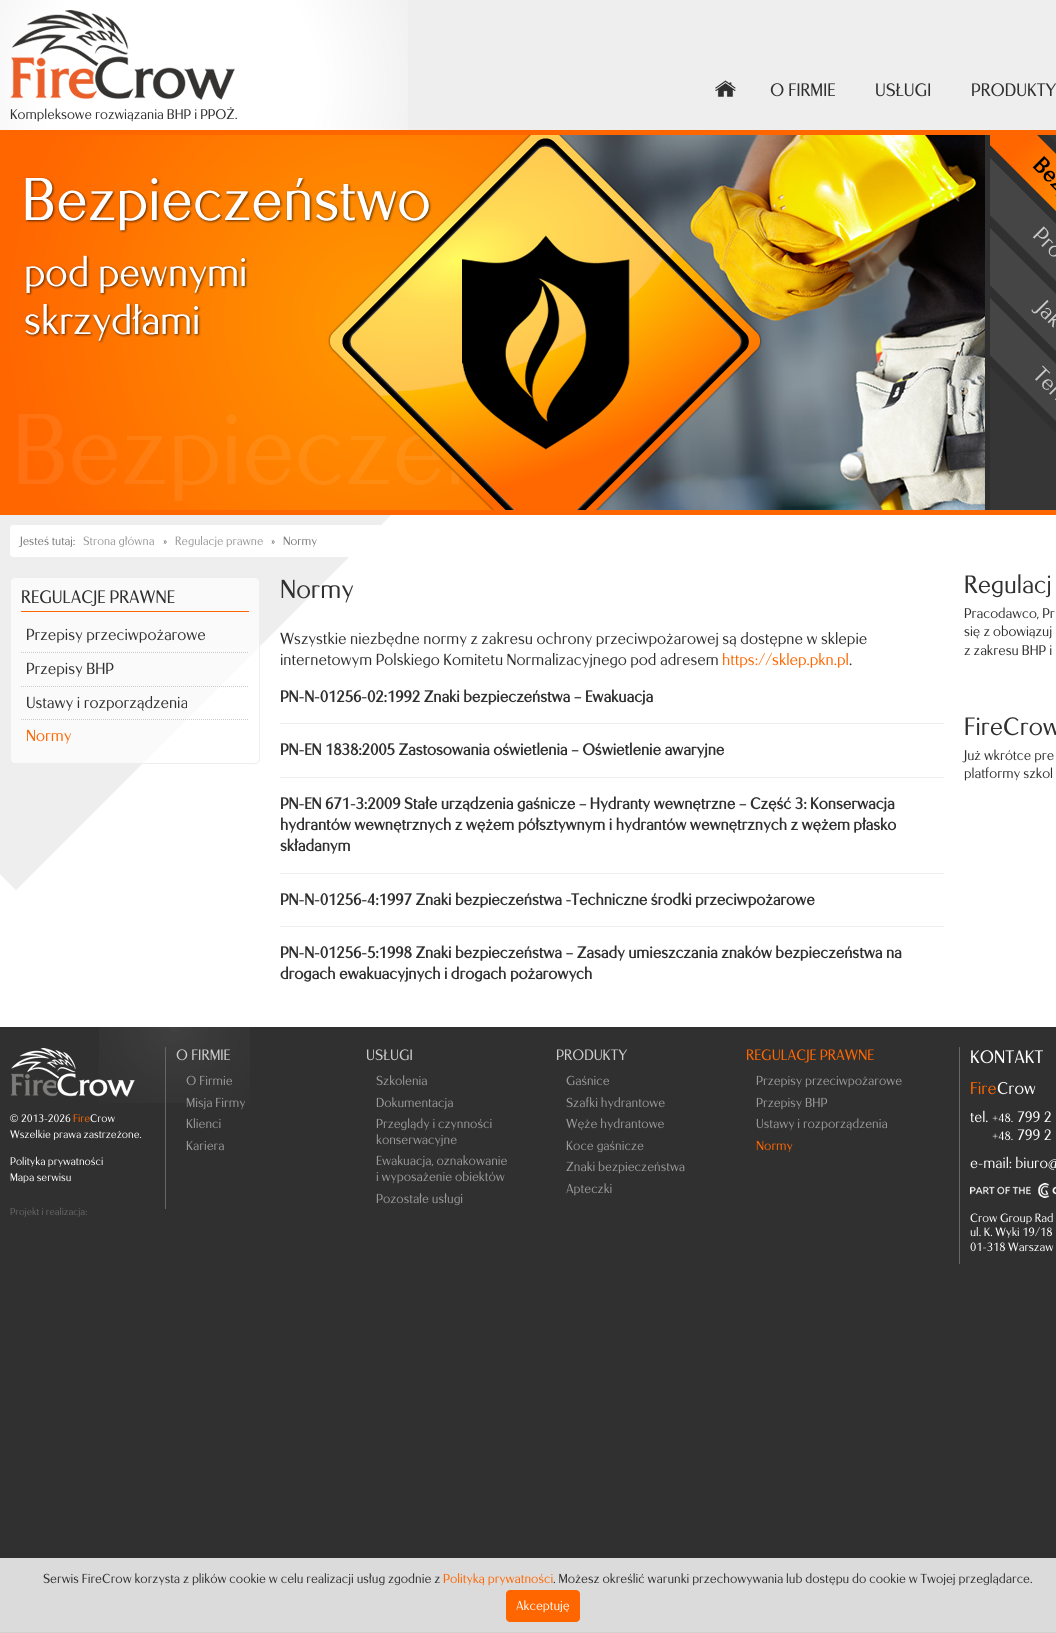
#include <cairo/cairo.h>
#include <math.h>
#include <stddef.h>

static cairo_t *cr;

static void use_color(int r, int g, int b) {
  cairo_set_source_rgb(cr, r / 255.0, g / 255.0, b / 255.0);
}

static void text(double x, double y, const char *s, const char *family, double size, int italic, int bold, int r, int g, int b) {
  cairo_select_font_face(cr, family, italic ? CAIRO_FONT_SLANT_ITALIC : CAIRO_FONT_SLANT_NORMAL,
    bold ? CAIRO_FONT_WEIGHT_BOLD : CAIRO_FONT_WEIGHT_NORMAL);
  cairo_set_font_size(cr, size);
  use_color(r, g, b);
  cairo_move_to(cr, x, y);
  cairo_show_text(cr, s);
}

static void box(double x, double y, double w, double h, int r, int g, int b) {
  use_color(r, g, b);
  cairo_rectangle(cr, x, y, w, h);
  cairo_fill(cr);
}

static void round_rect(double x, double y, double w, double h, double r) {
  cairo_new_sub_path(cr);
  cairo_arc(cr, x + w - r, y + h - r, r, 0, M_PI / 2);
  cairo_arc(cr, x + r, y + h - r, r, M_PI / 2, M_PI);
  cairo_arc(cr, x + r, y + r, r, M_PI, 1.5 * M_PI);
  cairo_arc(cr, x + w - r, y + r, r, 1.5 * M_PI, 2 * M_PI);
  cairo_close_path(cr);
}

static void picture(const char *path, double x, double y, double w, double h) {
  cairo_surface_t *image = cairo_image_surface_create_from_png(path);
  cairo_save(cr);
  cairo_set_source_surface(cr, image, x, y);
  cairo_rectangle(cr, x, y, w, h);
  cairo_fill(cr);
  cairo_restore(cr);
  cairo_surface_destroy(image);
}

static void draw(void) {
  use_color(48, 48, 48);
  cairo_paint(cr);
  box(408, 0, 648, 130, 238, 238, 238);
  picture("img_01.png", 0, 0, 408, 130);
  picture("img_02.png", 715, 80, 21, 17);
  picture("img_03.png", 10, 10, 225, 90);
  box(0, 130, 1056, 385, 255, 102, 0);
  picture("img_04.png", 10, 135, 1046, 375);
  box(0, 515, 1056, 512, 255, 255, 255);
  picture("img_05.png", 0, 515, 391, 376);
  round_rect(10, 525, 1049, 32, 3);
  cairo_fill(cr);
  cairo_set_source_rgba(cr, 1, 1, 1, 0.7);
  round_rect(10.5, 577.5, 249, 186, 4.5);
  cairo_fill_preserve(cr);
  use_color(238, 238, 238);
  cairo_set_line_width(cr, 1);
  cairo_stroke(cr);
  box(21, 611, 228, 1, 255, 102, 0);
  cairo_new_path(cr);
  cairo_move_to(cr, 21, 652.5);
  cairo_line_to(cr, 249, 652.5);
  use_color(204, 204, 204);
  cairo_set_dash(cr, (double[]){1, 1}, 2, 0);
  cairo_stroke(cr);
  cairo_new_path(cr);
  cairo_move_to(cr, 21, 686.5);
  cairo_line_to(cr, 249, 686.5);
  cairo_stroke(cr);
  cairo_new_path(cr);
  cairo_move_to(cr, 21, 719.5);
  cairo_line_to(cr, 249, 719.5);
  cairo_stroke(cr);
  box(280, 723, 664, 1, 238, 238, 238);
  box(280, 777, 664, 1, 238, 238, 238);
  box(280, 873, 664, 1, 238, 238, 238);
  box(280, 926, 664, 1, 238, 238, 238);
  picture("img_06.png", 99, 1027, 151, 76);
  picture("img_07.png", 10, 1048, 125, 49);
  box(165, 1047, 1, 162, 102, 102, 102);
  box(959, 1047, 1, 217, 102, 102, 102);
  picture("img_08.png", 970, 1183, 86, 15);
  box(0, 1558, 1056, 74, 219, 219, 219);
  box(0, 1632, 1056, 1, 211, 208, 208);
  use_color(255, 102, 0);
  round_rect(506, 1590, 74, 32, 4);
  cairo_fill(cr);
  text(770, 96, "O FIRMIE", "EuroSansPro", 18, 0, 0, 48, 48, 48);
  text(875, 96, "USŁUGI", "EuroSansPro", 18, 0, 0, 48, 48, 48);
  text(971, 96, "PRODUKTY", "EuroSansPro", 18, 0, 0, 48, 48, 48);
  text(10, 119, "Kompleksowe rozwiązania BHP i PPOŻ.", "EuroSansPro", 14, 0, 0, 48, 48, 48);
  text(20, 545, "Jesteś tutaj:", "EuroSansPro", 12, 0, 0, 119, 119, 119);
  text(83, 545, "Strona główna", "EuroSansPro", 12, 0, 0, 153, 153, 153);
  text(163, 545, "»", "EuroSansPro", 12, 0, 0, 119, 119, 119);
  text(175, 545, "Regulacje prawne", "EuroSansPro", 12, 0, 0, 153, 153, 153);
  text(271, 545, "»", "EuroSansPro", 12, 0, 0, 119, 119, 119);
  text(283, 545, "Normy", "EuroSansPro", 12, 0, 0, 119, 119, 119);
  text(21, 603, "REGULACJE PRAWNE", "EuroSansPro", 18, 0, 0, 48, 48, 48);
  text(26, 640, "Przepisy przeciwpożarowe", "EuroSansPro", 16, 0, 0, 48, 48, 48);
  text(26, 674, "Przepisy BHP", "EuroSansPro", 16, 0, 0, 48, 48, 48);
  text(26, 708, "Ustawy i rozporządzenia", "EuroSansPro", 16, 0, 0, 48, 48, 48);
  text(26, 741, "Normy", "EuroSansPro", 16, 0, 0, 255, 102, 0);
  text(280, 598, "Normy", "EuroSansPro", 26, 0, 0, 48, 48, 48);
  text(280, 644, "Wszystkie niezbędne normy z zakresu ochrony przeciwpożarowej są dostępne w sklepie", "EuroSansPro", 16, 0, 0, 48, 48, 48);
  text(280, 665, "internetowym Polskiego Komitetu Normalizacyjnego pod adresem", "EuroSansPro", 16, 0, 0, 48, 48, 48);
  text(722, 665, "https://sklep.pkn.pl", "EuroSansPro", 16, 0, 0, 255, 102, 0);
  text(849, 665, ".", "EuroSansPro", 16, 0, 0, 48, 48, 48);
  text(280, 702, "PN-N-01256-02:1992 Znaki bezpieczeństwa – Ewakuacja", "EuroSansPro", 16, 0, 1, 48, 48, 48);
  text(280, 755, "PN-EN 1838:2005 Zastosowania oświetlenia – Oświetlenie awaryjne", "EuroSansPro", 16, 0, 1, 48, 48, 48);
  text(280, 809, "PN-EN 671-3:2009 Stałe urządzenia gaśnicze – Hydranty wewnętrzne – Część 3: Konserwacja", "EuroSansPro", 16, 0, 1, 48, 48, 48);
  text(280, 830, "hydrantów wewnętrznych z wężem półsztywnym i hydrantów wewnętrznych z wężem płasko", "EuroSansPro", 16, 0, 1, 48, 48, 48);
  text(280, 851, "składanym", "EuroSansPro", 16, 0, 1, 48, 48, 48);
  text(280, 905, "PN-N-01256-4:1997 Znaki bezpieczeństwa -Techniczne środki przeciwpożarowe", "EuroSansPro", 16, 0, 1, 48, 48, 48);
  text(280, 958, "PN-N-01256-5:1998 Znaki bezpieczeństwa – Zasady umieszczania znaków bezpieczeństwa na", "EuroSansPro", 16, 0, 1, 48, 48, 48);
  text(280, 979, "drogach ewakuacyjnych i drogach pożarowych", "EuroSansPro", 16, 0, 1, 48, 48, 48);
  text(964, 593, "Regulacj", "EuroSansPro", 25, 0, 0, 48, 48, 48);
  text(964, 618, "Pracodawco, Pr", "EuroSansPro", 14, 0, 0, 48, 48, 48);
  text(964, 636, "się z obowiązuj", "EuroSansPro", 14, 0, 0, 48, 48, 48);
  text(964, 655, "z zakresu BHP i", "EuroSansPro", 14, 0, 0, 48, 48, 48);
  text(964, 735, "FireCrow", "EuroSansPro", 25, 0, 0, 48, 48, 48);
  text(964, 760, "Już wkrótce pre", "EuroSansPro", 14, 0, 0, 48, 48, 48);
  text(964, 778, "platformy szkol", "EuroSansPro", 14, 0, 0, 48, 48, 48);
  text(10, 1122, "©", "Liberation Sans", 11, 0, 0, 255, 255, 255);
  text(21, 1122, "2013-2026", "EuroSansPro", 11, 0, 0, 255, 255, 255);
  text(73, 1122, "Fire", "EuroSansPro", 11, 0, 0, 255, 102, 0);
  text(90, 1122, "Crow", "EuroSansPro", 11, 0, 0, 255, 255, 255);
  text(10, 1138, "Wszelkie prawa zastrzeżone.", "EuroSansPro", 11, 0, 0, 255, 255, 255);
  text(10, 1165, "Polityka prywatności", "EuroSansPro", 11, 0, 0, 255, 255, 255);
  text(10, 1181, "Mapa serwisu", "EuroSansPro", 11, 0, 0, 255, 255, 255);
  text(10, 1215, "Projekt i realizacja:", "EuroSansPro", 10, 0, 0, 102, 102, 102);
  text(176, 1060, "O FIRMIE", "EuroSansPro", 15, 0, 0, 204, 204, 204);
  text(186, 1085, "O Firmie", "EuroSansPro", 13, 0, 0, 153, 153, 153);
  text(186, 1107, "Misja Firmy", "EuroSansPro", 13, 0, 0, 153, 153, 153);
  text(186, 1128, "Klienci", "EuroSansPro", 13, 0, 0, 153, 153, 153);
  text(186, 1150, "Kariera", "EuroSansPro", 13, 0, 0, 153, 153, 153);
  text(366, 1060, "USŁUGI", "EuroSansPro", 15, 0, 0, 204, 204, 204);
  text(376, 1085, "Szkolenia", "EuroSansPro", 13, 0, 0, 153, 153, 153);
  text(376, 1107, "Dokumentacja", "EuroSansPro", 13, 0, 0, 153, 153, 153);
  text(376, 1128, "Przeglądy i czynności", "EuroSansPro", 13, 0, 0, 153, 153, 153);
  text(376, 1144, "konserwacyjne", "EuroSansPro", 13, 0, 0, 153, 153, 153);
  text(376, 1165, "Ewakuacja, oznakowanie", "EuroSansPro", 13, 0, 0, 153, 153, 153);
  text(376, 1181, "i wyposażenie obiektów", "EuroSansPro", 13, 0, 0, 153, 153, 153);
  text(376, 1203, "Pozostałe usługi", "EuroSansPro", 13, 0, 0, 153, 153, 153);
  text(556, 1060, "PRODUKTY", "EuroSansPro", 15, 0, 0, 204, 204, 204);
  text(566, 1085, "Gaśnice", "EuroSansPro", 13, 0, 0, 153, 153, 153);
  text(566, 1107, "Szafki hydrantowe", "EuroSansPro", 13, 0, 0, 153, 153, 153);
  text(566, 1128, "Węże hydrantowe", "EuroSansPro", 13, 0, 0, 153, 153, 153);
  text(566, 1150, "Koce gaśnicze", "EuroSansPro", 13, 0, 0, 153, 153, 153);
  text(566, 1171, "Znaki bezpieczeństwa", "EuroSansPro", 13, 0, 0, 153, 153, 153);
  text(566, 1193, "Apteczki", "EuroSansPro", 13, 0, 0, 153, 153, 153);
  text(746, 1060, "REGULACJE PRAWNE", "EuroSansPro", 15, 0, 0, 255, 102, 0);
  text(756, 1085, "Przepisy przeciwpożarowe", "EuroSansPro", 13, 0, 0, 153, 153, 153);
  text(756, 1107, "Przepisy BHP", "EuroSansPro", 13, 0, 0, 153, 153, 153);
  text(756, 1128, "Ustawy i rozporządzenia", "EuroSansPro", 13, 0, 0, 153, 153, 153);
  text(756, 1150, "Normy", "EuroSansPro", 13, 0, 0, 255, 102, 0);
  text(970, 1063, "KONTAKT", "EuroSansPro", 18, 0, 0, 255, 255, 255);
  text(970, 1094, "Fire", "EuroSansPro", 17, 0, 0, 255, 102, 0);
  text(997, 1094, "Crow", "EuroSansPro", 17, 0, 0, 255, 255, 255);
  text(970, 1122, "tel.", "EuroSansPro", 15, 0, 0, 255, 255, 255);
  text(992, 1122, "+48.", "EuroSansPro", 12, 0, 0, 255, 255, 255);
  text(1017, 1122, "799 2", "EuroSansPro", 15, 0, 0, 255, 255, 255);
  text(992, 1140, "+48.", "EuroSansPro", 12, 0, 0, 255, 255, 255);
  text(1017, 1140, "799 2", "EuroSansPro", 15, 0, 0, 255, 255, 255);
  text(970, 1168, "e-mail: biuro@", "EuroSansPro", 15, 0, 0, 255, 255, 255);
  text(970, 1222, "Crow Group Rad", "EuroSansPro", 12, 0, 0, 255, 255, 255);
  text(970, 1236, "ul. K. Wyki 19/18", "EuroSansPro", 12, 0, 0, 255, 255, 255);
  text(970, 1251, "01-318 Warszaw", "EuroSansPro", 12, 0, 0, 255, 255, 255);
  text(43, 1583, "Serwis FireCrow korzysta z plików cookie w celu realizacji usług zgodnie z", "EuroSansPro", 13, 0, 0, 48, 48, 48);
  text(443, 1583, "Polityką prywatności", "EuroSansPro", 13, 0, 0, 255, 102, 0);
  text(553, 1583, ". Możesz określić warunki przechowywania lub dostępu do cookie w Twojej przeglądarce.", "EuroSansPro", 13, 0, 0, 48, 48, 48);
  text(516, 1610, "Akceptuję", "EuroSansPro", 13, 0, 0, 255, 255, 255);
}

int main(void) {
  cairo_surface_t *surface = cairo_image_surface_create(CAIRO_FORMAT_RGB24, 1056, 1633);
  cr = cairo_create(surface);
  cairo_font_options_t *options = cairo_font_options_create();
  cairo_font_options_set_hint_metrics(options, CAIRO_HINT_METRICS_OFF);
  cairo_font_options_set_hint_style(options, CAIRO_HINT_STYLE_NONE);
  cairo_set_font_options(cr, options);
  cairo_set_miter_limit(cr, 4);
  draw();
  cairo_surface_write_to_png(surface, "out.png");
  cairo_font_options_destroy(options);
  cairo_destroy(cr);
  cairo_surface_destroy(surface);
  return 0;
}
